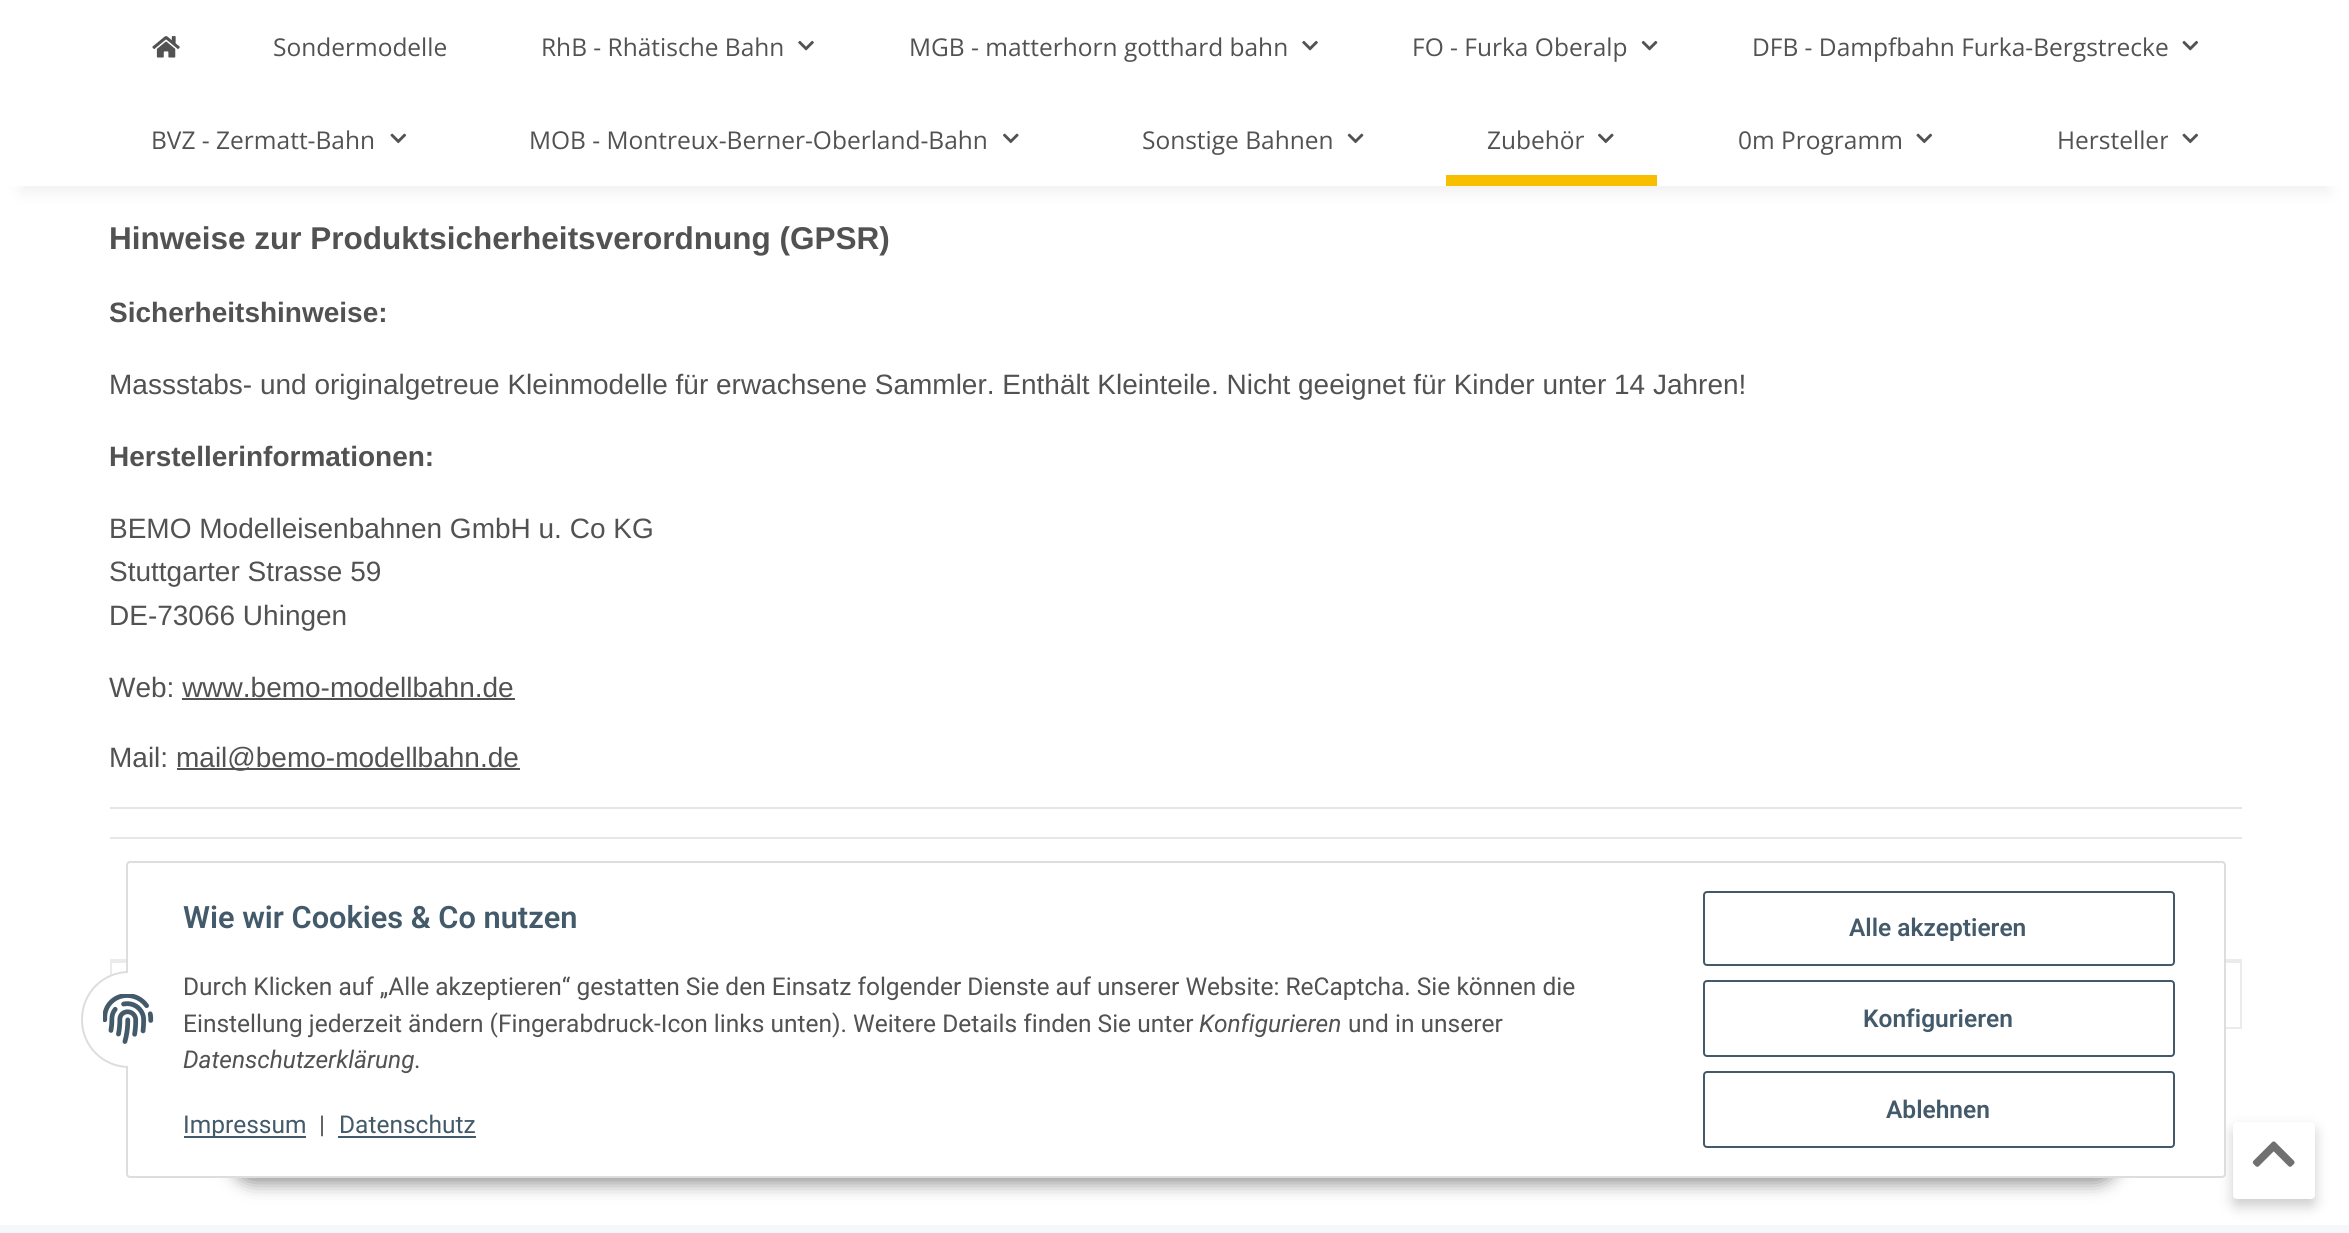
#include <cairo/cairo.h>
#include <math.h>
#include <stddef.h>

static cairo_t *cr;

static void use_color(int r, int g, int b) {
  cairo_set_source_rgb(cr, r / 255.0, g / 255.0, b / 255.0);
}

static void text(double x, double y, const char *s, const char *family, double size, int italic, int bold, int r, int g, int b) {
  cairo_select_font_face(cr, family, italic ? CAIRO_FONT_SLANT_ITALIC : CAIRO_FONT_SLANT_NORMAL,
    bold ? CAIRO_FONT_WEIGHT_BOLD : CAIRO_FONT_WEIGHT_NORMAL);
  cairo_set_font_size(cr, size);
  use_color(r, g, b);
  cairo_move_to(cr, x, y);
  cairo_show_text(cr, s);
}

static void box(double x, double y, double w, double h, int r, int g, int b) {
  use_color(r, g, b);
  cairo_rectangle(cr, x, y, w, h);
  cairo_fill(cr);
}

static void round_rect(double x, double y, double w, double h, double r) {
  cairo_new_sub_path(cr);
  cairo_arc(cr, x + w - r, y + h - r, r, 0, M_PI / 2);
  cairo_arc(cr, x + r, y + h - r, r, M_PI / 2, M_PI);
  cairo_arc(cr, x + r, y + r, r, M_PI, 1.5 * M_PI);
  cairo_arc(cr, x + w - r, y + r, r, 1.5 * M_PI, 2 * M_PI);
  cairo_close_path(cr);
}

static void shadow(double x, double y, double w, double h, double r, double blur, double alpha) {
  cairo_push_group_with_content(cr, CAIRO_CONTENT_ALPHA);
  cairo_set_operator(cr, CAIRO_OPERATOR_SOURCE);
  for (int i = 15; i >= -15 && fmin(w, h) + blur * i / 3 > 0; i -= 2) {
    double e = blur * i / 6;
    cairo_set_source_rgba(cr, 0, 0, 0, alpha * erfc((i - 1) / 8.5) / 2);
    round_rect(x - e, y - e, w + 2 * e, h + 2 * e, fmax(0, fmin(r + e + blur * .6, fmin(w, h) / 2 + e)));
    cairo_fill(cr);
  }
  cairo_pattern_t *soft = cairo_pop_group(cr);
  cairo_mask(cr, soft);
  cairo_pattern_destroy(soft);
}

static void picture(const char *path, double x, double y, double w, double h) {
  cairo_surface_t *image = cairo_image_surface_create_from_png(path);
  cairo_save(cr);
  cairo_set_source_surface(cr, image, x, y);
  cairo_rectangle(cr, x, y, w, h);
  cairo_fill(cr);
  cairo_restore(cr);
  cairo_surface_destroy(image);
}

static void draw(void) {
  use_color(245, 247, 250);
  cairo_paint(cr);
  box(0, 186, 2349, 1039, 255, 255, 255);
  use_color(0, 0, 0);
  shadow(21, 49, 2308, 144, 0, 8, 0.06);
  box(0, 0, 2349, 186, 255, 255, 255);
  picture("img_01.png", 152, 36, 28, 22);
  picture("img_02.png", 798, 40, 16, 11);
  picture("img_02.png", 1302, 40, 16, 11);
  picture("img_03.png", 1641, 40, 17, 11);
  picture("img_04.png", 2182, 40, 17, 11);
  picture("img_05.png", 390, 133, 17, 11);
  picture("img_06.png", 1003, 133, 16, 11);
  picture("img_07.png", 1347, 133, 17, 11);
  picture("img_06.png", 1598, 133, 16, 11);
  box(1446, 175, 211, 11, 248, 191, 0);
  picture("img_05.png", 1916, 133, 17, 11);
  picture("img_05.png", 2182, 133, 17, 11);
  box(182, 698, 333, 2, 82, 82, 82);
  box(177, 768, 343, 2, 82, 82, 82);
  box(110, 807, 2132, 2, 230, 230, 230);
  box(110, 837, 2132, 2, 230, 230, 230);
  box(110, 959, 2132, 4, 235, 235, 235);
  box(2240, 961, 2, 68, 235, 235, 235);
  box(2226, 1027, 16, 2, 235, 235, 235);
  box(110, 961, 2, 14, 235, 235, 235);
  use_color(0, 0, 0);
  shadow(231, 1127, 1888, 56, 28, 9, 0.45);
  shadow(2233, 1129, 82, 77, 4, 7, 0.2);
  use_color(255, 255, 255);
  round_rect(127, 862, 2098, 315, 3);
  cairo_fill_preserve(cr);
  use_color(221, 221, 221);
  cairo_stroke(cr);
  use_color(255, 255, 255);
  round_rect(82, 972, 94, 95, 47);
  cairo_fill_preserve(cr);
  use_color(221, 221, 221);
  cairo_stroke(cr);
  box(128, 971, 49, 97, 255, 255, 255);
  picture("img_08.png", 103, 994, 51, 50);
  box(184, 1136, 122, 2, 67, 90, 107);
  box(338, 1136, 138, 2, 67, 90, 107);
  round_rect(1704, 892, 470, 73, 3);
  cairo_stroke(cr);
  round_rect(1704, 981, 470, 75, 3);
  cairo_stroke(cr);
  round_rect(1704, 1072, 470, 75, 3);
  cairo_stroke(cr);
  use_color(255, 255, 255);
  round_rect(2233, 1122, 82, 77, 4);
  cairo_fill(cr);
  picture("img_09.png", 2252, 1141, 43, 26);
  text(273, 56, "Sondermodelle", "Open Sans", 24.5, 0, 0, 82, 82, 82);
  text(541, 56, "RhB - Rhätische Bahn", "Open Sans", 24.5, 0, 0, 82, 82, 82);
  text(909, 56, "MGB - matterhorn gotthard bahn", "Open Sans", 24.5, 0, 0, 82, 82, 82);
  text(1412, 56, "FO - Furka Oberalp", "Open Sans", 24.5, 0, 0, 82, 82, 82);
  text(1752, 56, "DFB - Dampfbahn Furka-Bergstrecke", "Open Sans", 24.5, 0, 0, 82, 82, 82);
  text(151, 149, "BVZ - Zermatt-Bahn", "Open Sans", 24.5, 0, 0, 82, 82, 82);
  text(529, 149, "MOB - Montreux-Berner-Oberland-Bahn", "Open Sans", 24.5, 0, 0, 82, 82, 82);
  text(1142, 149, "Sonstige Bahnen", "Open Sans", 24.5, 0, 0, 82, 82, 82);
  text(1487, 149, "Zubehör", "Open Sans", 24.5, 0, 0, 82, 82, 82);
  text(1738, 149, "0m Programm", "Open Sans", 24.5, 0, 0, 82, 82, 82);
  cairo_save(cr);
  cairo_rectangle(cr, 2056, 121, 112, 37);
  cairo_clip(cr);
  text(2057, 149, "Hersteller", "Open Sans", 24.5, 0, 0, 82, 82, 82);
  cairo_restore(cr);
  text(109, 249, "Hinweise zur Produktsicherheitsverordnung (GPSR)", "Liberation Sans", 31.5, 0, 1, 82, 82, 82);
  text(109, 322, "Sicherheitshinweise:", "Liberation Sans", 28, 0, 1, 82, 82, 82);
  text(109, 394, "Massstabs- und originalgetreue Kleinmodelle für erwachsene Sammler. Enthält Kleinteile. Nicht geeignet für Kinder unter 14 Jahren!", "Liberation Sans", 28, 0, 0, 82, 82, 82);
  text(109, 466, "Herstellerinformationen:", "Liberation Sans", 28, 0, 1, 82, 82, 82);
  text(109, 538, "BEMO Modelleisenbahnen GmbH u. Co KG", "Liberation Sans", 28, 0, 0, 82, 82, 82);
  text(109, 581, "Stuttgarter Strasse 59", "Liberation Sans", 28, 0, 0, 82, 82, 82);
  text(109, 625, "DE-73066 Uhingen", "Liberation Sans", 28, 0, 0, 82, 82, 82);
  text(109, 697, "Web: www.bemo-modellbahn.de", "Liberation Sans", 28, 0, 0, 82, 82, 82);
  text(109, 767, "Mail:", "Liberation Sans", 28, 0, 0, 82, 82, 82);
  text(176, 767, "mail@bemo-modellbahn.de", "Liberation Sans", 28, 0, 0, 82, 82, 82);
  text(183, 928, "Wie wir Cookies & Co nutzen", "Roboto SemiBold", 30.75, 0, 0, 67, 90, 107);
  text(183, 995, "Durch Klicken auf „Alle akzeptieren“ gestatten Sie den Einsatz folgender Dienste auf unserer Website: ReCaptcha. Sie können die", "Roboto", 24.5, 0, 0, 82, 82, 82);
  text(183, 1032, "Einstellung jederzeit ändern (Fingerabdruck-Icon links unten). Weitere Details finden Sie unter", "Roboto", 24.5, 0, 0, 82, 82, 82);
  text(1199, 1032, "Konfigurieren", "Roboto", 24.5, 1, 0, 82, 82, 82);
  text(1348, 1032, "und in unserer", "Roboto", 24.5, 0, 0, 82, 82, 82);
  text(183, 1068, "Datenschutzerklärung", "Roboto", 24.5, 1, 0, 82, 82, 82);
  text(414, 1068, ".", "Roboto", 24.5, 0, 0, 82, 82, 82);
  text(183, 1133, "Impressum", "Roboto", 24.5, 0, 0, 67, 90, 107);
  text(319, 1133, "|", "Roboto", 24.5, 0, 0, 82, 82, 82);
  text(339, 1133, "Datenschutz", "Roboto", 24.5, 0, 0, 67, 90, 107);
  text(1849, 936, "Alle akzeptieren", "Roboto SemiBold", 24.5, 0, 0, 67, 90, 107);
  text(1863, 1027, "Konfigurieren", "Roboto SemiBold", 24.5, 0, 0, 67, 90, 107);
  text(1886, 1118, "Ablehnen", "Roboto SemiBold", 24.5, 0, 0, 67, 90, 107);
}

int main(void) {
  cairo_surface_t *surface = cairo_image_surface_create(CAIRO_FORMAT_RGB24, 2349, 1233);
  cr = cairo_create(surface);
  cairo_font_options_t *options = cairo_font_options_create();
  cairo_font_options_set_hint_metrics(options, CAIRO_HINT_METRICS_OFF);
  cairo_font_options_set_hint_style(options, CAIRO_HINT_STYLE_NONE);
  cairo_set_font_options(cr, options);
  cairo_set_miter_limit(cr, 4);
  draw();
  cairo_surface_write_to_png(surface, "out.png");
  cairo_font_options_destroy(options);
  cairo_destroy(cr);
  cairo_surface_destroy(surface);
  return 0;
}
